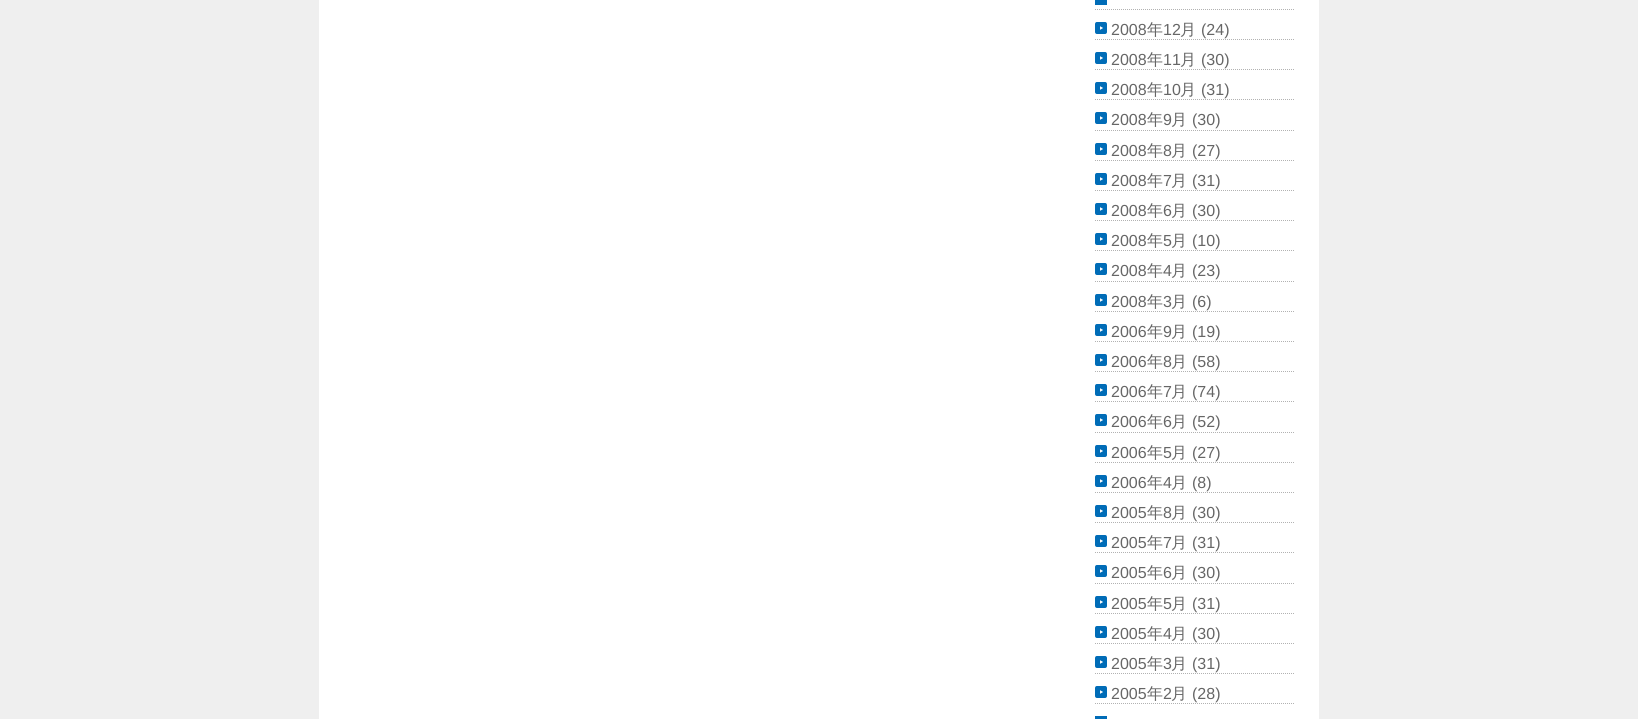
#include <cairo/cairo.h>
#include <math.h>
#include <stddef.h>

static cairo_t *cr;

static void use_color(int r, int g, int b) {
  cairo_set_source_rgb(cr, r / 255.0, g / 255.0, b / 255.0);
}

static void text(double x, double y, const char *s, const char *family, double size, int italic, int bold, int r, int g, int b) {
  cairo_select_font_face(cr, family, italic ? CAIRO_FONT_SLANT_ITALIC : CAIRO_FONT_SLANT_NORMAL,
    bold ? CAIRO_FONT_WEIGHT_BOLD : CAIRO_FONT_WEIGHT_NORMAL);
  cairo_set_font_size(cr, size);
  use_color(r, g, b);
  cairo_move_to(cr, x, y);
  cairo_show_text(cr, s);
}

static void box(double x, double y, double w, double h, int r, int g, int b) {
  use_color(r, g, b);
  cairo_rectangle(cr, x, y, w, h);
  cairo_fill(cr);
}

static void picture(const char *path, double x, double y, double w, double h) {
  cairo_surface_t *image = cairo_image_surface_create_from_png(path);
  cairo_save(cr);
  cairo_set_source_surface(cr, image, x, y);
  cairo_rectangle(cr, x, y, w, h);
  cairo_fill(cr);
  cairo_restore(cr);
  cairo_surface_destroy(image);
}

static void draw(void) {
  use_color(239, 239, 239);
  cairo_paint(cr);
  box(319, 0, 1000, 719, 255, 255, 255);
  box(1095, 0, 12, 5, 0, 108, 183);
  cairo_new_path(cr);
  cairo_move_to(cr, 1095, 9.5);
  cairo_line_to(cr, 1294, 9.5);
  use_color(178, 178, 178);
  cairo_set_line_width(cr, 1);
  cairo_set_dash(cr, (double[]){1, 1}, 2, 0);
  cairo_stroke(cr);
  picture("img_01.png", 1095, 22, 12, 12);
  cairo_new_path(cr);
  cairo_move_to(cr, 1095, 39.5);
  cairo_line_to(cr, 1294, 39.5);
  cairo_stroke(cr);
  picture("img_01.png", 1095, 52, 12, 12);
  cairo_new_path(cr);
  cairo_move_to(cr, 1095, 69.5);
  cairo_line_to(cr, 1294, 69.5);
  cairo_stroke(cr);
  picture("img_01.png", 1095, 82, 12, 12);
  cairo_new_path(cr);
  cairo_move_to(cr, 1095, 99.5);
  cairo_line_to(cr, 1294, 99.5);
  cairo_stroke(cr);
  picture("img_01.png", 1095, 112, 12, 12);
  cairo_new_path(cr);
  cairo_move_to(cr, 1095, 130.5);
  cairo_line_to(cr, 1294, 130.5);
  cairo_stroke(cr);
  picture("img_01.png", 1095, 143, 12, 12);
  cairo_new_path(cr);
  cairo_move_to(cr, 1095, 160.5);
  cairo_line_to(cr, 1294, 160.5);
  cairo_stroke(cr);
  picture("img_01.png", 1095, 173, 12, 12);
  cairo_new_path(cr);
  cairo_move_to(cr, 1095, 190.5);
  cairo_line_to(cr, 1294, 190.5);
  cairo_stroke(cr);
  picture("img_01.png", 1095, 203, 12, 12);
  cairo_new_path(cr);
  cairo_move_to(cr, 1095, 220.5);
  cairo_line_to(cr, 1294, 220.5);
  cairo_stroke(cr);
  picture("img_01.png", 1095, 233, 12, 12);
  cairo_new_path(cr);
  cairo_move_to(cr, 1095, 250.5);
  cairo_line_to(cr, 1294, 250.5);
  cairo_stroke(cr);
  picture("img_01.png", 1095, 263, 12, 12);
  cairo_new_path(cr);
  cairo_move_to(cr, 1095, 281.5);
  cairo_line_to(cr, 1294, 281.5);
  cairo_stroke(cr);
  picture("img_01.png", 1095, 294, 12, 12);
  cairo_new_path(cr);
  cairo_move_to(cr, 1095, 311.5);
  cairo_line_to(cr, 1294, 311.5);
  cairo_stroke(cr);
  picture("img_01.png", 1095, 324, 12, 12);
  cairo_new_path(cr);
  cairo_move_to(cr, 1095, 341.5);
  cairo_line_to(cr, 1294, 341.5);
  cairo_stroke(cr);
  picture("img_01.png", 1095, 354, 12, 12);
  cairo_new_path(cr);
  cairo_move_to(cr, 1095, 371.5);
  cairo_line_to(cr, 1294, 371.5);
  cairo_stroke(cr);
  picture("img_01.png", 1095, 384, 12, 12);
  cairo_new_path(cr);
  cairo_move_to(cr, 1095, 401.5);
  cairo_line_to(cr, 1294, 401.5);
  cairo_stroke(cr);
  picture("img_01.png", 1095, 414, 12, 12);
  cairo_new_path(cr);
  cairo_move_to(cr, 1095, 432.5);
  cairo_line_to(cr, 1294, 432.5);
  cairo_stroke(cr);
  picture("img_01.png", 1095, 445, 12, 12);
  cairo_new_path(cr);
  cairo_move_to(cr, 1095, 462.5);
  cairo_line_to(cr, 1294, 462.5);
  cairo_stroke(cr);
  picture("img_01.png", 1095, 475, 12, 12);
  cairo_new_path(cr);
  cairo_move_to(cr, 1095, 492.5);
  cairo_line_to(cr, 1294, 492.5);
  cairo_stroke(cr);
  picture("img_01.png", 1095, 505, 12, 12);
  cairo_new_path(cr);
  cairo_move_to(cr, 1095, 522.5);
  cairo_line_to(cr, 1294, 522.5);
  cairo_stroke(cr);
  picture("img_01.png", 1095, 535, 12, 12);
  cairo_new_path(cr);
  cairo_move_to(cr, 1095, 552.5);
  cairo_line_to(cr, 1294, 552.5);
  cairo_stroke(cr);
  picture("img_01.png", 1095, 565, 12, 12);
  cairo_new_path(cr);
  cairo_move_to(cr, 1095, 583.5);
  cairo_line_to(cr, 1294, 583.5);
  cairo_stroke(cr);
  picture("img_01.png", 1095, 596, 12, 12);
  cairo_new_path(cr);
  cairo_move_to(cr, 1095, 613.5);
  cairo_line_to(cr, 1294, 613.5);
  cairo_stroke(cr);
  picture("img_01.png", 1095, 626, 12, 12);
  cairo_new_path(cr);
  cairo_move_to(cr, 1095, 643.5);
  cairo_line_to(cr, 1294, 643.5);
  cairo_stroke(cr);
  picture("img_01.png", 1095, 656, 12, 12);
  cairo_new_path(cr);
  cairo_move_to(cr, 1095, 673.5);
  cairo_line_to(cr, 1294, 673.5);
  cairo_stroke(cr);
  picture("img_01.png", 1095, 686, 12, 12);
  cairo_new_path(cr);
  cairo_move_to(cr, 1095, 703.5);
  cairo_line_to(cr, 1294, 703.5);
  cairo_stroke(cr);
  box(1095, 716, 12, 3, 0, 108, 183);
  text(1111, 35, "2008", "Liberation Sans", 16, 0, 0, 102, 102, 102);
  text(1147, 35, "年", "WenQuanYi Zen Hei Medium", 16, 0, 0, 102, 102, 102);
  text(1163, 35, "12", "Liberation Sans", 16, 0, 0, 102, 102, 102);
  text(1180, 35, "月", "WenQuanYi Zen Hei Medium", 16, 0, 0, 102, 102, 102);
  text(1201, 35, "(24)", "Liberation Sans", 16, 0, 0, 102, 102, 102);
  text(1111, 65, "2008", "Liberation Sans", 16, 0, 0, 102, 102, 102);
  text(1147, 65, "年", "WenQuanYi Zen Hei Medium", 16, 0, 0, 102, 102, 102);
  text(1163, 65, "11", "Liberation Sans", 16, 0, 0, 102, 102, 102);
  text(1180, 65, "月", "WenQuanYi Zen Hei Medium", 16, 0, 0, 102, 102, 102);
  text(1201, 65, "(30)", "Liberation Sans", 16, 0, 0, 102, 102, 102);
  text(1111, 95, "2008", "Liberation Sans", 16, 0, 0, 102, 102, 102);
  text(1147, 95, "年", "WenQuanYi Zen Hei Medium", 16, 0, 0, 102, 102, 102);
  text(1163, 95, "10", "Liberation Sans", 16, 0, 0, 102, 102, 102);
  text(1180, 95, "月", "WenQuanYi Zen Hei Medium", 16, 0, 0, 102, 102, 102);
  text(1201, 95, "(31)", "Liberation Sans", 16, 0, 0, 102, 102, 102);
  text(1111, 125, "2008", "Liberation Sans", 16, 0, 0, 102, 102, 102);
  text(1147, 125, "年", "WenQuanYi Zen Hei Medium", 16, 0, 0, 102, 102, 102);
  text(1163, 125, "9", "Liberation Sans", 16, 0, 0, 102, 102, 102);
  text(1171, 125, "月", "WenQuanYi Zen Hei Medium", 16, 0, 0, 102, 102, 102);
  text(1192, 125, "(30)", "Liberation Sans", 16, 0, 0, 102, 102, 102);
  text(1111, 156, "2008", "Liberation Sans", 16, 0, 0, 102, 102, 102);
  text(1147, 156, "年", "WenQuanYi Zen Hei Medium", 16, 0, 0, 102, 102, 102);
  text(1163, 156, "8", "Liberation Sans", 16, 0, 0, 102, 102, 102);
  text(1171, 156, "月", "WenQuanYi Zen Hei Medium", 16, 0, 0, 102, 102, 102);
  text(1192, 156, "(27)", "Liberation Sans", 16, 0, 0, 102, 102, 102);
  text(1111, 186, "2008", "Liberation Sans", 16, 0, 0, 102, 102, 102);
  text(1147, 186, "年", "WenQuanYi Zen Hei Medium", 16, 0, 0, 102, 102, 102);
  text(1163, 186, "7", "Liberation Sans", 16, 0, 0, 102, 102, 102);
  text(1171, 186, "月", "WenQuanYi Zen Hei Medium", 16, 0, 0, 102, 102, 102);
  text(1192, 186, "(31)", "Liberation Sans", 16, 0, 0, 102, 102, 102);
  text(1111, 216, "2008", "Liberation Sans", 16, 0, 0, 102, 102, 102);
  text(1147, 216, "年", "WenQuanYi Zen Hei Medium", 16, 0, 0, 102, 102, 102);
  text(1163, 216, "6", "Liberation Sans", 16, 0, 0, 102, 102, 102);
  text(1171, 216, "月", "WenQuanYi Zen Hei Medium", 16, 0, 0, 102, 102, 102);
  text(1192, 216, "(30)", "Liberation Sans", 16, 0, 0, 102, 102, 102);
  text(1111, 246, "2008", "Liberation Sans", 16, 0, 0, 102, 102, 102);
  text(1147, 246, "年", "WenQuanYi Zen Hei Medium", 16, 0, 0, 102, 102, 102);
  text(1163, 246, "5", "Liberation Sans", 16, 0, 0, 102, 102, 102);
  text(1171, 246, "月", "WenQuanYi Zen Hei Medium", 16, 0, 0, 102, 102, 102);
  text(1192, 246, "(10)", "Liberation Sans", 16, 0, 0, 102, 102, 102);
  text(1111, 276, "2008", "Liberation Sans", 16, 0, 0, 102, 102, 102);
  text(1147, 276, "年", "WenQuanYi Zen Hei Medium", 16, 0, 0, 102, 102, 102);
  text(1163, 276, "4", "Liberation Sans", 16, 0, 0, 102, 102, 102);
  text(1171, 276, "月", "WenQuanYi Zen Hei Medium", 16, 0, 0, 102, 102, 102);
  text(1192, 276, "(23)", "Liberation Sans", 16, 0, 0, 102, 102, 102);
  text(1111, 307, "2008", "Liberation Sans", 16, 0, 0, 102, 102, 102);
  text(1147, 307, "年", "WenQuanYi Zen Hei Medium", 16, 0, 0, 102, 102, 102);
  text(1163, 307, "3", "Liberation Sans", 16, 0, 0, 102, 102, 102);
  text(1171, 307, "月", "WenQuanYi Zen Hei Medium", 16, 0, 0, 102, 102, 102);
  text(1192, 307, "(6)", "Liberation Sans", 16, 0, 0, 102, 102, 102);
  text(1111, 337, "2006", "Liberation Sans", 16, 0, 0, 102, 102, 102);
  text(1147, 337, "年", "WenQuanYi Zen Hei Medium", 16, 0, 0, 102, 102, 102);
  text(1163, 337, "9", "Liberation Sans", 16, 0, 0, 102, 102, 102);
  text(1171, 337, "月", "WenQuanYi Zen Hei Medium", 16, 0, 0, 102, 102, 102);
  text(1192, 337, "(19)", "Liberation Sans", 16, 0, 0, 102, 102, 102);
  text(1111, 367, "2006", "Liberation Sans", 16, 0, 0, 102, 102, 102);
  text(1147, 367, "年", "WenQuanYi Zen Hei Medium", 16, 0, 0, 102, 102, 102);
  text(1163, 367, "8", "Liberation Sans", 16, 0, 0, 102, 102, 102);
  text(1171, 367, "月", "WenQuanYi Zen Hei Medium", 16, 0, 0, 102, 102, 102);
  text(1192, 367, "(58)", "Liberation Sans", 16, 0, 0, 102, 102, 102);
  text(1111, 397, "2006", "Liberation Sans", 16, 0, 0, 102, 102, 102);
  text(1147, 397, "年", "WenQuanYi Zen Hei Medium", 16, 0, 0, 102, 102, 102);
  text(1163, 397, "7", "Liberation Sans", 16, 0, 0, 102, 102, 102);
  text(1171, 397, "月", "WenQuanYi Zen Hei Medium", 16, 0, 0, 102, 102, 102);
  text(1192, 397, "(74)", "Liberation Sans", 16, 0, 0, 102, 102, 102);
  text(1111, 427, "2006", "Liberation Sans", 16, 0, 0, 102, 102, 102);
  text(1147, 427, "年", "WenQuanYi Zen Hei Medium", 16, 0, 0, 102, 102, 102);
  text(1163, 427, "6", "Liberation Sans", 16, 0, 0, 102, 102, 102);
  text(1171, 427, "月", "WenQuanYi Zen Hei Medium", 16, 0, 0, 102, 102, 102);
  text(1192, 427, "(52)", "Liberation Sans", 16, 0, 0, 102, 102, 102);
  text(1111, 458, "2006", "Liberation Sans", 16, 0, 0, 102, 102, 102);
  text(1147, 458, "年", "WenQuanYi Zen Hei Medium", 16, 0, 0, 102, 102, 102);
  text(1163, 458, "5", "Liberation Sans", 16, 0, 0, 102, 102, 102);
  text(1171, 458, "月", "WenQuanYi Zen Hei Medium", 16, 0, 0, 102, 102, 102);
  text(1192, 458, "(27)", "Liberation Sans", 16, 0, 0, 102, 102, 102);
  text(1111, 488, "2006", "Liberation Sans", 16, 0, 0, 102, 102, 102);
  text(1147, 488, "年", "WenQuanYi Zen Hei Medium", 16, 0, 0, 102, 102, 102);
  text(1163, 488, "4", "Liberation Sans", 16, 0, 0, 102, 102, 102);
  text(1171, 488, "月", "WenQuanYi Zen Hei Medium", 16, 0, 0, 102, 102, 102);
  text(1192, 488, "(8)", "Liberation Sans", 16, 0, 0, 102, 102, 102);
  text(1111, 518, "2005", "Liberation Sans", 16, 0, 0, 102, 102, 102);
  text(1147, 518, "年", "WenQuanYi Zen Hei Medium", 16, 0, 0, 102, 102, 102);
  text(1163, 518, "8", "Liberation Sans", 16, 0, 0, 102, 102, 102);
  text(1171, 518, "月", "WenQuanYi Zen Hei Medium", 16, 0, 0, 102, 102, 102);
  text(1192, 518, "(30)", "Liberation Sans", 16, 0, 0, 102, 102, 102);
  text(1111, 548, "2005", "Liberation Sans", 16, 0, 0, 102, 102, 102);
  text(1147, 548, "年", "WenQuanYi Zen Hei Medium", 16, 0, 0, 102, 102, 102);
  text(1163, 548, "7", "Liberation Sans", 16, 0, 0, 102, 102, 102);
  text(1171, 548, "月", "WenQuanYi Zen Hei Medium", 16, 0, 0, 102, 102, 102);
  text(1192, 548, "(31)", "Liberation Sans", 16, 0, 0, 102, 102, 102);
  text(1111, 578, "2005", "Liberation Sans", 16, 0, 0, 102, 102, 102);
  text(1147, 578, "年", "WenQuanYi Zen Hei Medium", 16, 0, 0, 102, 102, 102);
  text(1163, 578, "6", "Liberation Sans", 16, 0, 0, 102, 102, 102);
  text(1171, 578, "月", "WenQuanYi Zen Hei Medium", 16, 0, 0, 102, 102, 102);
  text(1192, 578, "(30)", "Liberation Sans", 16, 0, 0, 102, 102, 102);
  text(1111, 609, "2005", "Liberation Sans", 16, 0, 0, 102, 102, 102);
  text(1147, 609, "年", "WenQuanYi Zen Hei Medium", 16, 0, 0, 102, 102, 102);
  text(1163, 609, "5", "Liberation Sans", 16, 0, 0, 102, 102, 102);
  text(1171, 609, "月", "WenQuanYi Zen Hei Medium", 16, 0, 0, 102, 102, 102);
  text(1192, 609, "(31)", "Liberation Sans", 16, 0, 0, 102, 102, 102);
  text(1111, 639, "2005", "Liberation Sans", 16, 0, 0, 102, 102, 102);
  text(1147, 639, "年", "WenQuanYi Zen Hei Medium", 16, 0, 0, 102, 102, 102);
  text(1163, 639, "4", "Liberation Sans", 16, 0, 0, 102, 102, 102);
  text(1171, 639, "月", "WenQuanYi Zen Hei Medium", 16, 0, 0, 102, 102, 102);
  text(1192, 639, "(30)", "Liberation Sans", 16, 0, 0, 102, 102, 102);
  text(1111, 669, "2005", "Liberation Sans", 16, 0, 0, 102, 102, 102);
  text(1147, 669, "年", "WenQuanYi Zen Hei Medium", 16, 0, 0, 102, 102, 102);
  text(1163, 669, "3", "Liberation Sans", 16, 0, 0, 102, 102, 102);
  text(1171, 669, "月", "WenQuanYi Zen Hei Medium", 16, 0, 0, 102, 102, 102);
  text(1192, 669, "(31)", "Liberation Sans", 16, 0, 0, 102, 102, 102);
  text(1111, 699, "2005", "Liberation Sans", 16, 0, 0, 102, 102, 102);
  text(1147, 699, "年", "WenQuanYi Zen Hei Medium", 16, 0, 0, 102, 102, 102);
  text(1163, 699, "2", "Liberation Sans", 16, 0, 0, 102, 102, 102);
  text(1171, 699, "月", "WenQuanYi Zen Hei Medium", 16, 0, 0, 102, 102, 102);
  text(1192, 699, "(28)", "Liberation Sans", 16, 0, 0, 102, 102, 102);
}

int main(void) {
  cairo_surface_t *surface = cairo_image_surface_create(CAIRO_FORMAT_RGB24, 1638, 719);
  cr = cairo_create(surface);
  cairo_font_options_t *options = cairo_font_options_create();
  cairo_font_options_set_hint_metrics(options, CAIRO_HINT_METRICS_OFF);
  cairo_font_options_set_hint_style(options, CAIRO_HINT_STYLE_NONE);
  cairo_set_font_options(cr, options);
  cairo_set_miter_limit(cr, 4);
  draw();
  cairo_surface_write_to_png(surface, "out.png");
  cairo_font_options_destroy(options);
  cairo_destroy(cr);
  cairo_surface_destroy(surface);
  return 0;
}
